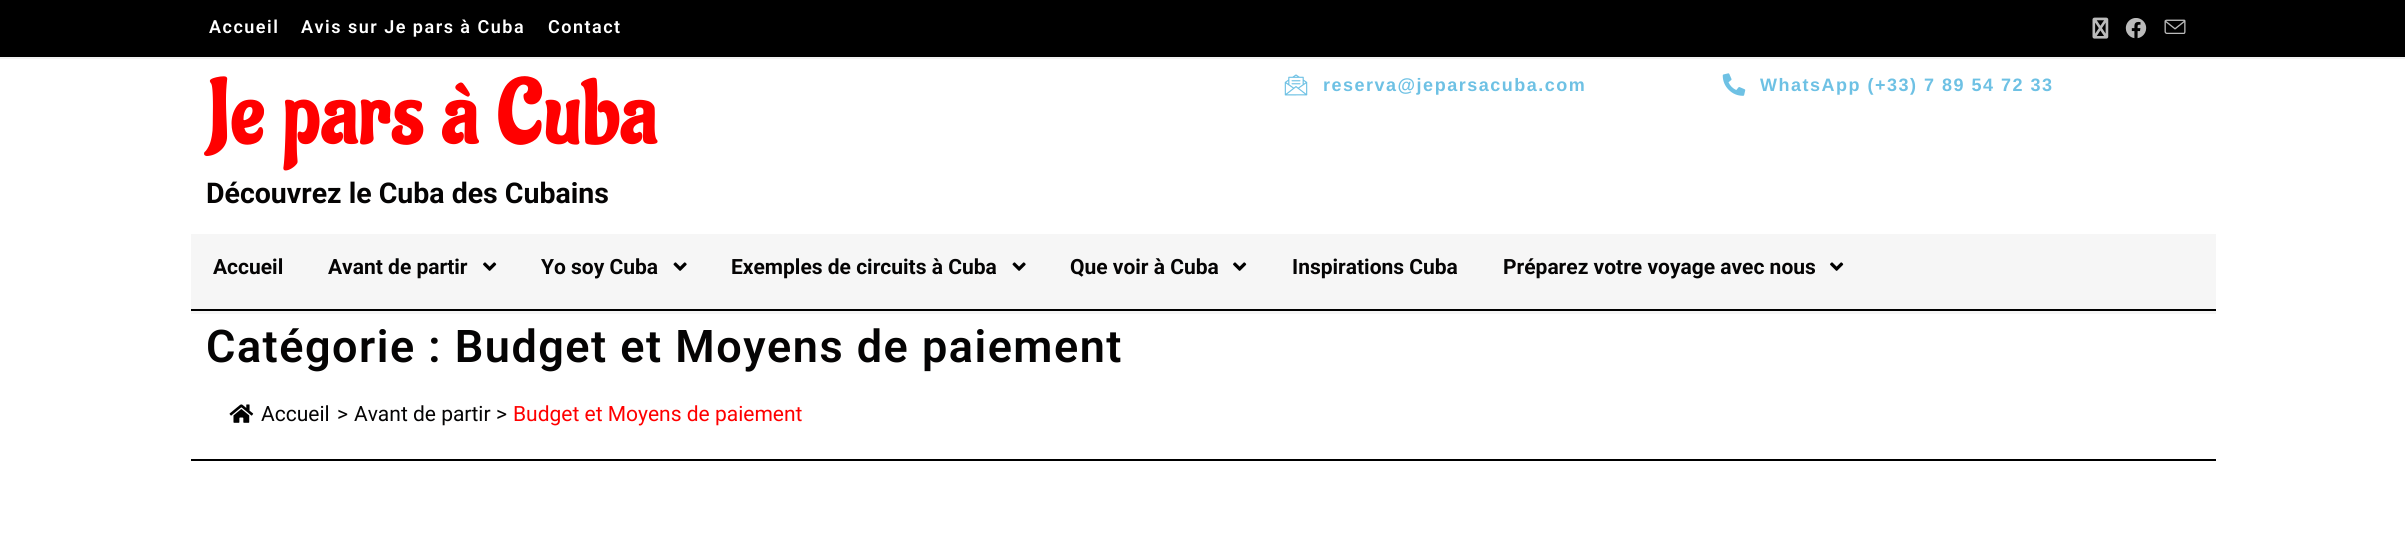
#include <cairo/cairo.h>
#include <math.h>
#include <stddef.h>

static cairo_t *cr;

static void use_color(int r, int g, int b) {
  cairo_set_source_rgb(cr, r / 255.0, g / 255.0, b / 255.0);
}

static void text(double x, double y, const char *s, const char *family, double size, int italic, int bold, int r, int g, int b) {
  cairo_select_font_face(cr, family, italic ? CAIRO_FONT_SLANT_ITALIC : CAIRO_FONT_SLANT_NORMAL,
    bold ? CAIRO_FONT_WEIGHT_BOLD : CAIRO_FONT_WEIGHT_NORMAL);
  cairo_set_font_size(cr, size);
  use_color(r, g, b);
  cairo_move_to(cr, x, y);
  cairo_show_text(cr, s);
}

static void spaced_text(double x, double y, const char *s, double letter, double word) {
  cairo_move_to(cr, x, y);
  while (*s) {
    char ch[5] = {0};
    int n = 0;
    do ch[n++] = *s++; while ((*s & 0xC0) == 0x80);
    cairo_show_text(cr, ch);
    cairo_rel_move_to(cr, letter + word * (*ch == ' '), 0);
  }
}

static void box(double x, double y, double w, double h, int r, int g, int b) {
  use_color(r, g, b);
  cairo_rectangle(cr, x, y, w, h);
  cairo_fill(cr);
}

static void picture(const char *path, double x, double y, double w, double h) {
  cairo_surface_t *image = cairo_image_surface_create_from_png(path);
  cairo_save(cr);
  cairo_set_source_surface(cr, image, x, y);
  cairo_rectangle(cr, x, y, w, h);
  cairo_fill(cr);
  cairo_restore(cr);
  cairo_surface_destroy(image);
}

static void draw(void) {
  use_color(255, 255, 255);
  cairo_paint(cr);
  box(0, 0, 2405, 57, 0, 0, 0);
  box(0, 57, 2405, 2, 241, 241, 241);
  picture("img_01.png", 2092, 17, 17, 22);
  picture("img_02.png", 2125, 18, 22, 21);
  picture("img_03.png", 2164, 19, 22, 15);
  picture("img_04.png", 1284, 74, 24, 22);
  picture("img_05.png", 1722, 73, 24, 23);
  box(191, 234, 2025, 80, 246, 246, 246);
  picture("img_06.png", 483, 262, 14, 9);
  picture("img_07.png", 673, 262, 14, 9);
  picture("img_07.png", 1012, 262, 14, 9);
  picture("img_06.png", 1233, 262, 14, 9);
  picture("img_06.png", 1830, 262, 14, 9);
  box(191, 309, 2025, 2, 0, 0, 0);
  picture("img_08.png", 229, 404, 25, 19);
  box(191, 459, 2025, 2, 0, 0, 0);
  cairo_select_font_face(cr, "Roboto SemiBold", CAIRO_FONT_SLANT_NORMAL, CAIRO_FONT_WEIGHT_NORMAL);
  cairo_set_font_size(cr, 18);
  use_color(255, 255, 255);
  spaced_text(209, 33, "Accueil", 1.5, 0);
  spaced_text(301, 33, "Avis sur Je pars à Cuba", 1.5, 0);
  spaced_text(548, 33, "Contact", 1.5, 0);
  cairo_select_font_face(cr, "Aladin", CAIRO_FONT_SLANT_NORMAL, CAIRO_FONT_WEIGHT_BOLD);
  cairo_set_font_size(cr, 90);
  use_color(255, 0, 0);
  spaced_text(206, 143, "Je pars à Cuba", 1.5, 0);
  cairo_select_font_face(cr, "Liberation Sans", CAIRO_FONT_SLANT_NORMAL, CAIRO_FONT_WEIGHT_BOLD);
  cairo_set_font_size(cr, 18);
  use_color(110, 193, 228);
  spaced_text(1323, 91, "reserva@jeparsacuba.com", 1.5, 0);
  spaced_text(1760, 91, "WhatsApp (+33) 7 89 54 72 33", 1.5, 0);
  text(206, 203, "Découvrez le Cuba des Cubains", "Roboto", 28.5, 0, 1, 5, 4, 4);
  text(213, 274, "Accueil", "Roboto", 21, 0, 1, 5, 4, 4);
  text(328, 274, "Avant de partir", "Roboto", 21, 0, 1, 5, 4, 4);
  text(541, 274, "Yo soy Cuba", "Roboto", 21, 0, 1, 5, 4, 4);
  text(731, 274, "Exemples de circuits à Cuba", "Roboto", 21, 0, 1, 5, 4, 4);
  text(1070, 274, "Que voir à Cuba", "Roboto", 21, 0, 1, 5, 4, 4);
  text(1292, 274, "Inspirations Cuba", "Roboto", 21, 0, 1, 5, 4, 4);
  text(1503, 274, "Préparez votre voyage avec nous", "Roboto", 21, 0, 1, 5, 4, 4);
  cairo_select_font_face(cr, "Roboto SemiBold", CAIRO_FONT_SLANT_NORMAL, CAIRO_FONT_WEIGHT_NORMAL);
  cairo_set_font_size(cr, 45);
  spaced_text(206, 362, "Catégorie : Budget et Moyens de paiement", 1.5, 0);
  text(261, 421, "Accueil", "Roboto", 21, 0, 0, 5, 4, 4);
  text(337, 421, ">", "Roboto", 21, 0, 0, 5, 4, 4);
  text(354, 421, "Avant de partir", "Roboto", 21, 0, 0, 5, 4, 4);
  text(496, 421, ">", "Roboto", 21, 0, 0, 5, 4, 4);
  text(513, 421, "Budget et Moyens de paiement", "Roboto", 21, 0, 0, 255, 0, 0);
}

int main(void) {
  cairo_surface_t *surface = cairo_image_surface_create(CAIRO_FORMAT_RGB24, 2405, 550);
  cr = cairo_create(surface);
  cairo_font_options_t *options = cairo_font_options_create();
  cairo_font_options_set_hint_metrics(options, CAIRO_HINT_METRICS_OFF);
  cairo_font_options_set_hint_style(options, CAIRO_HINT_STYLE_NONE);
  cairo_set_font_options(cr, options);
  cairo_set_miter_limit(cr, 4);
  draw();
  cairo_surface_write_to_png(surface, "out.png");
  cairo_font_options_destroy(options);
  cairo_destroy(cr);
  cairo_surface_destroy(surface);
  return 0;
}
